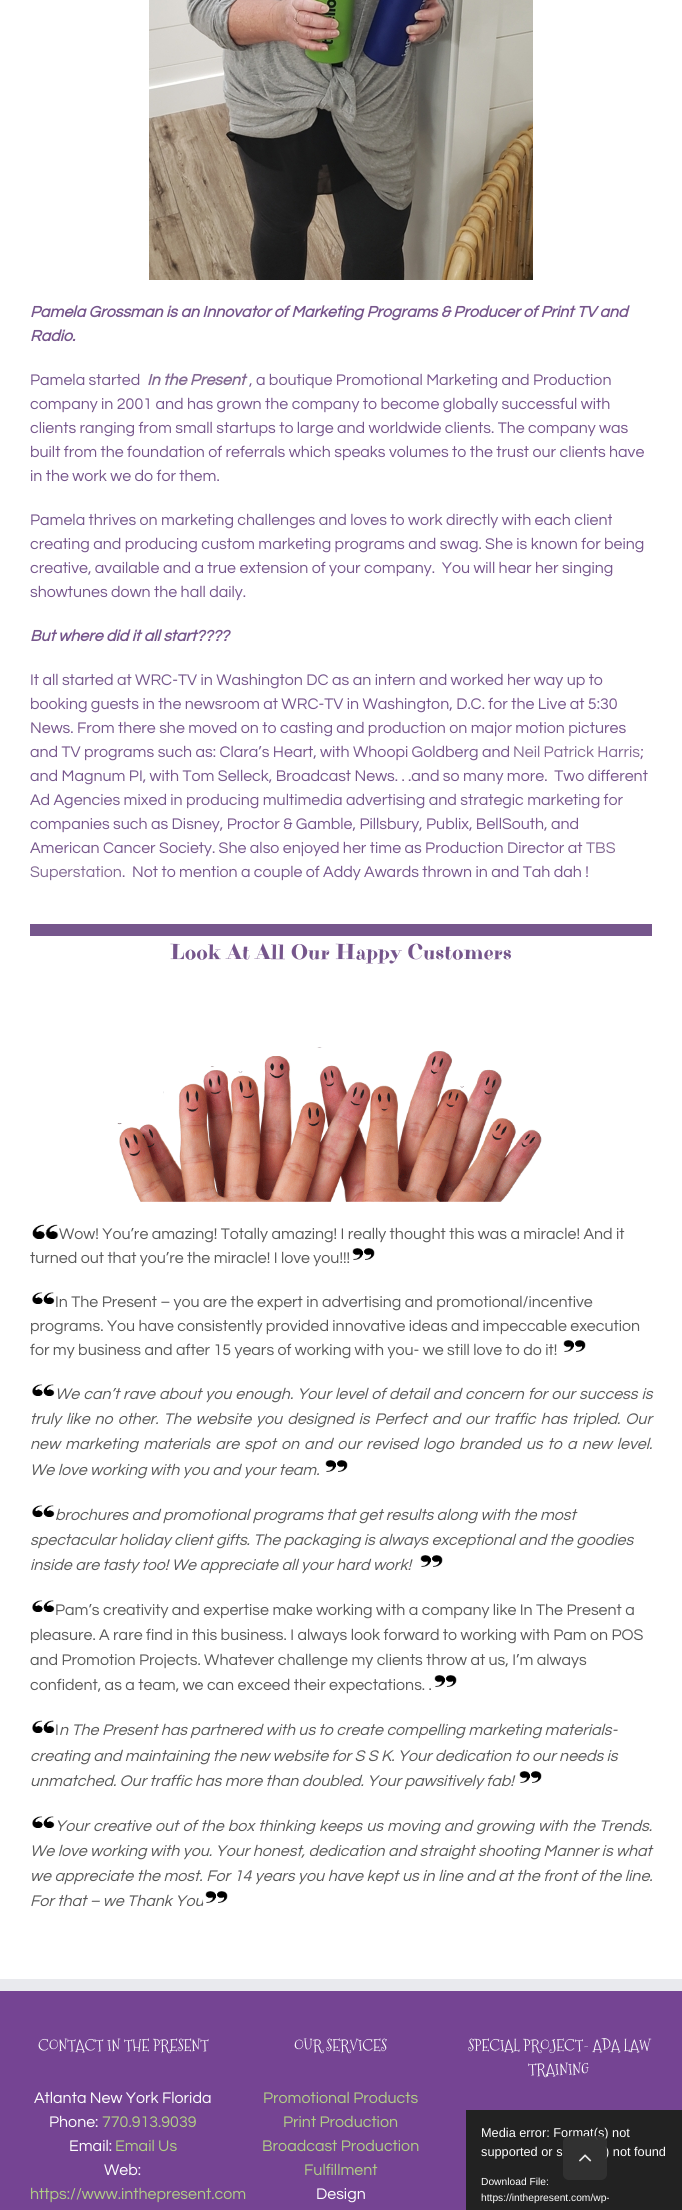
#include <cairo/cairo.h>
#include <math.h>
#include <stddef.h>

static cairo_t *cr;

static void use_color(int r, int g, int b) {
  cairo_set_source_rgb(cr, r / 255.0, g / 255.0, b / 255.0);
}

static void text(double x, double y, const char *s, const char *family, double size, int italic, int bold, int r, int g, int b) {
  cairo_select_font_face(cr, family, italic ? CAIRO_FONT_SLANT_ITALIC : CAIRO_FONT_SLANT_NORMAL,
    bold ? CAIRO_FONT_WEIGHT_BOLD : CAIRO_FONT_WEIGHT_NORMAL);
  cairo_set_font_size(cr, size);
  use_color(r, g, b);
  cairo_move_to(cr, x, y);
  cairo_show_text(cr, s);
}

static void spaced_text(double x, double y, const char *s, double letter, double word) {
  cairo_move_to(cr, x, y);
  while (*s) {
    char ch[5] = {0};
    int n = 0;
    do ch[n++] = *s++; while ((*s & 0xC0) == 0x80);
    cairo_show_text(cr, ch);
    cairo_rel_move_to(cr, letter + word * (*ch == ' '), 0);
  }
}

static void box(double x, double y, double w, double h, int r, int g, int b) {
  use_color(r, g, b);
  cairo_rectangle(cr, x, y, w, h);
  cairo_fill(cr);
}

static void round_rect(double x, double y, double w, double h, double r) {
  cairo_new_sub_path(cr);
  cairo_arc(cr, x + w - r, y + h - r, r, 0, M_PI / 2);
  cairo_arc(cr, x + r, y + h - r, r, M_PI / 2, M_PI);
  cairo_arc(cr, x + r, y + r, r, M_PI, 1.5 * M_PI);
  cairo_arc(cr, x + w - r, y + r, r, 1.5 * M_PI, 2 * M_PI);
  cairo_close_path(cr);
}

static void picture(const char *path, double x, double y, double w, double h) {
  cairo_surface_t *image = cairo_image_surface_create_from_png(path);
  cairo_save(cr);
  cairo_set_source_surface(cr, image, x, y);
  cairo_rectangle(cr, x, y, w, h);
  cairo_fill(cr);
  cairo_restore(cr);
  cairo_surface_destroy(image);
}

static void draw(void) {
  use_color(255, 255, 255);
  cairo_paint(cr);
  picture("img_01.png", 149, 0, 384, 280);
  box(30, 924, 622, 12, 118, 86, 140);
  picture("img_02.png", 117, 1047, 425, 155);
  picture("img_03.png", 32, 1224, 27, 15);
  picture("img_04.png", 352, 1248, 23, 12);
  picture("img_05.png", 32, 1292, 23, 12);
  picture("img_06.png", 563, 1340, 23, 12);
  picture("img_05.png", 32, 1384, 23, 12);
  picture("img_06.png", 325, 1460, 23, 12);
  picture("img_05.png", 32, 1505, 23, 12);
  picture("img_04.png", 420, 1555, 23, 12);
  picture("img_05.png", 32, 1600, 23, 12);
  picture("img_06.png", 434, 1675, 23, 12);
  picture("img_07.png", 32, 1720, 23, 13);
  picture("img_04.png", 519, 1771, 23, 12);
  picture("img_05.png", 32, 1816, 23, 12);
  box(0, 1991, 682, 219, 117, 68, 147);
  box(0, 1979, 682, 12, 233, 234, 238);
  box(466, 2110, 216, 100, 34, 34, 34);
  text(30, 317, "Pamela Grossman is an Innovator of Marketing Programs & Producer of Print TV and", "Questrial", 16, 1, 1, 118, 86, 140);
  text(30, 341, "Radio.", "Questrial", 16, 1, 1, 118, 86, 140);
  text(30, 385, "Pamela started", "Questrial", 16, 0, 0, 118, 86, 140);
  text(147, 385, "In the Present", "Questrial", 16, 1, 1, 131, 105, 147);
  text(249, 385, ", a boutique Promotional Marketing and Production", "Questrial", 16, 0, 0, 118, 86, 140);
  text(30, 409, "company in 2001 and has grown the company to become globally successful with", "Questrial", 16, 0, 0, 118, 86, 140);
  text(30, 433, "clients ranging from small startups to large and worldwide clients. The company was", "Questrial", 16, 0, 0, 118, 86, 140);
  text(30, 457, "built from the foundation of referrals which speaks volumes to the trust our clients have", "Questrial", 16, 0, 0, 118, 86, 140);
  text(30, 481, "in the work we do for them.", "Questrial", 16, 0, 0, 118, 86, 140);
  text(30, 525, "Pamela thrives on marketing challenges and loves to work directly with each client", "Questrial", 16, 0, 0, 118, 86, 140);
  text(30, 549, "creating and producing custom marketing programs and swag. She is known for being", "Questrial", 16, 0, 0, 118, 86, 140);
  text(30, 573, "creative, available and a true extension of your company.  You will hear her singing", "Questrial", 16, 0, 0, 118, 86, 140);
  text(30, 597, "showtunes down the hall daily.", "Questrial", 16, 0, 0, 118, 86, 140);
  text(30, 641, "But where did it all start?\077?\077", "Questrial", 16, 1, 1, 118, 86, 140);
  text(30, 685, "It all started at WRC-TV in Washington DC as an intern and worked her way up to", "Questrial", 16, 0, 0, 118, 86, 140);
  text(30, 709, "booking guests in the newsroom at WRC-TV in Washington, D.C. for the Live at 5:30", "Questrial", 16, 0, 0, 118, 86, 140);
  text(30, 733, "News. From there she moved on to casting and production on major motion pictures", "Questrial", 16, 0, 0, 118, 86, 140);
  text(30, 757, "and TV programs such as: Clara’s Heart, with Whoopi Goldberg and", "Questrial", 16, 0, 0, 118, 86, 140);
  text(513, 757, "Neil Patrick Harris", "Questrial", 16, 0, 0, 131, 105, 147);
  text(640, 757, ";", "Questrial", 16, 0, 0, 118, 86, 140);
  text(30, 781, "and Magnum PI, with Tom Selleck, Broadcast News. . .and so many more.  Two different", "Questrial", 16, 0, 0, 118, 86, 140);
  text(30, 805, "Ad Agencies mixed in producing multimedia advertising and strategic marketing for", "Questrial", 16, 0, 0, 118, 86, 140);
  text(30, 829, "companies such as Disney, Proctor & Gamble, Pillsbury, Publix, BellSouth, and", "Questrial", 16, 0, 0, 118, 86, 140);
  text(30, 853, "American Cancer Society. She also enjoyed her time as Production Director at", "Questrial", 16, 0, 0, 118, 86, 140);
  text(586, 853, "TBS", "Questrial", 16, 0, 0, 131, 105, 147);
  text(30, 877, "Superstation", "Questrial", 16, 0, 0, 131, 105, 147);
  text(122, 877, ".  Not to mention a couple of Addy Awards thrown in and Tah dah !", "Questrial", 16, 0, 0, 118, 86, 140);
  text(170, 959, "Look At All Our Happy Customers", "Purple Purse", 22, 0, 0, 118, 86, 140);
  text(59, 1239, "Wow! You’re amazing! Totally amazing! I really thought this was a miracle! And it", "Questrial", 16, 0, 0, 89, 89, 89);
  text(30, 1263, "turned out that you’re the miracle! I love you!!!", "Questrial", 16, 0, 0, 89, 89, 89);
  text(55, 1307, "In The Present – you are the expert in advertising and promotional/incentive", "Questrial", 16, 0, 0, 89, 89, 89);
  text(30, 1331, "programs. You have consistently provided innovative ideas and impeccable execution", "Questrial", 16, 0, 0, 89, 89, 89);
  text(30, 1355, "for my business and after 15 years of working with you- we still love to do it!", "Questrial", 16, 0, 0, 89, 89, 89);
  cairo_select_font_face(cr, "Questrial", CAIRO_FONT_SLANT_ITALIC, CAIRO_FONT_WEIGHT_NORMAL);
  spaced_text(55, 1399, "We can’t rave about you enough. Your level of detail and concern for our success is", 0, 0.6);
  spaced_text(30, 1424, "truly like no other. The website you designed is Perfect and our traffic has tripled. Our", 0, 1.6);
  spaced_text(30, 1449, "new marketing materials are spot on and our revised logo branded us to a new level.", 0, 1.75);
  text(30, 1475, "We love working with you and your team.", "Questrial", 16, 1, 0, 89, 89, 89);
  text(55, 1520, "brochures and promotional programs that get results along with the most", "Questrial", 16, 1, 0, 89, 89, 89);
  text(30, 1545, "spectacular holiday client gifts. The packaging is always exceptional and the goodies", "Questrial", 16, 1, 0, 89, 89, 89);
  text(30, 1570, "inside are tasty too! We appreciate all your hard work!", "Questrial", 16, 1, 0, 89, 89, 89);
  text(55, 1615, "Pam’s creativity and expertise make working with a company like In The Present a", "Questrial", 16, 0, 0, 89, 89, 89);
  text(30, 1640, "pleasure. A rare find in this business. I always look forward to working with Pam on POS", "Questrial", 16, 0, 0, 89, 89, 89);
  text(30, 1665, "and Promotion Projects. Whatever challenge my clients throw at us, I’m always", "Questrial", 16, 0, 0, 89, 89, 89);
  text(30, 1690, "confident, as a team, we can exceed their expectations. .", "Questrial", 16, 0, 0, 89, 89, 89);
  text(55, 1735, "I", "Questrial", 16, 0, 0, 89, 89, 89);
  text(59, 1735, "n The Present has partnered with us to create compelling marketing materials-", "Questrial", 16, 1, 0, 89, 89, 89);
  text(30, 1761, "creating and maintaining the new website for S S K. Your dedication to our needs is", "Questrial", 16, 1, 0, 89, 89, 89);
  text(30, 1786, "unmatched. Our traffic has more than doubled. Your pawsitively fab!", "Questrial", 16, 1, 0, 89, 89, 89);
  spaced_text(55, 1831, "Your creative out of the box thinking keeps us moving and growing with the Trends.", 0, 0.75);
  text(30, 1856, "We love working with you. Your honest, dedication and straight shooting Manner is what", "Questrial", 16, 1, 0, 89, 89, 89);
  spaced_text(30, 1881, "we appreciate the most. For 14 years you have kept us in line and at the front of the line.", 0, 0.2);
  text(30, 1906, "For that – we Thank You", "Questrial", 16, 1, 0, 89, 89, 89);
  picture("img_08.png", 203, 1891, 25, 12);
  text(38, 2051, "CONTACT IN THE PRESENT", "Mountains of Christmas", 16, 0, 0, 255, 255, 255);
  text(34, 2103, "Atlanta New York Florida", "Questrial", 16, 0, 0, 255, 255, 255);
  text(49, 2127, "Phone:", "Questrial", 16, 0, 0, 255, 255, 255);
  text(102, 2127, "770.913.9039", "Questrial", 16, 0, 0, 178, 206, 134);
  text(69, 2151, "Email:", "Questrial", 16, 0, 0, 255, 255, 255);
  text(115, 2151, "Email Us", "Questrial", 16, 0, 0, 178, 206, 134);
  text(104, 2175, "Web:", "Questrial", 16, 0, 0, 255, 255, 255);
  text(30, 2199, "https://www.inthepresent.com", "Questrial", 16, 0, 0, 178, 206, 134);
  text(294, 2051, "OUR SERVICES", "Mountains of Christmas", 16, 0, 0, 255, 255, 255);
  text(263, 2103, "Promotional Products", "Questrial", 16, 0, 0, 178, 206, 134);
  text(283, 2127, "Print Production", "Questrial", 16, 0, 0, 178, 206, 134);
  text(262, 2151, "Broadcast Production", "Questrial", 16, 0, 0, 178, 206, 134);
  text(304, 2175, "Fulfillment", "Questrial", 16, 0, 0, 178, 206, 134);
  text(316, 2199, "Design", "Questrial", 16, 0, 0, 255, 255, 255);
  text(468, 2051, "SPECIAL PROJECT- ADA LAW", "Mountains of Christmas", 16, 0, 0, 255, 255, 255);
  text(528, 2075, "TRAINING", "Mountains of Christmas", 16, 0, 0, 255, 255, 255);
  text(481, 2137, "Media error: Format(s) not", "Liberation Sans", 12.75, 0, 0, 255, 255, 255);
  text(481, 2156, "supported or s", "Liberation Sans", 12.75, 0, 0, 255, 255, 255);
  text(605, 2156, ") not found", "Liberation Sans", 12.75, 0, 0, 255, 255, 255);
  text(481, 2185, "Download File:", "Liberation Sans", 10.25, 0, 0, 255, 255, 255);
  text(481, 2201, "https://inthepresent.com/wp-", "Liberation Sans", 10.25, 0, 0, 255, 255, 255);
  cairo_set_source_rgba(cr, 0.2, 0.2, 0.2, 0.9);
  round_rect(563, 2136, 44, 44, 6);
  cairo_fill(cr);
  picture("img_09.png", 579, 2154, 13, 8);
}

int main(void) {
  cairo_surface_t *surface = cairo_image_surface_create(CAIRO_FORMAT_RGB24, 682, 2210);
  cr = cairo_create(surface);
  cairo_font_options_t *options = cairo_font_options_create();
  cairo_font_options_set_hint_metrics(options, CAIRO_HINT_METRICS_OFF);
  cairo_font_options_set_hint_style(options, CAIRO_HINT_STYLE_NONE);
  cairo_set_font_options(cr, options);
  cairo_set_miter_limit(cr, 4);
  draw();
  cairo_surface_write_to_png(surface, "out.png");
  cairo_font_options_destroy(options);
  cairo_destroy(cr);
  cairo_surface_destroy(surface);
  return 0;
}
